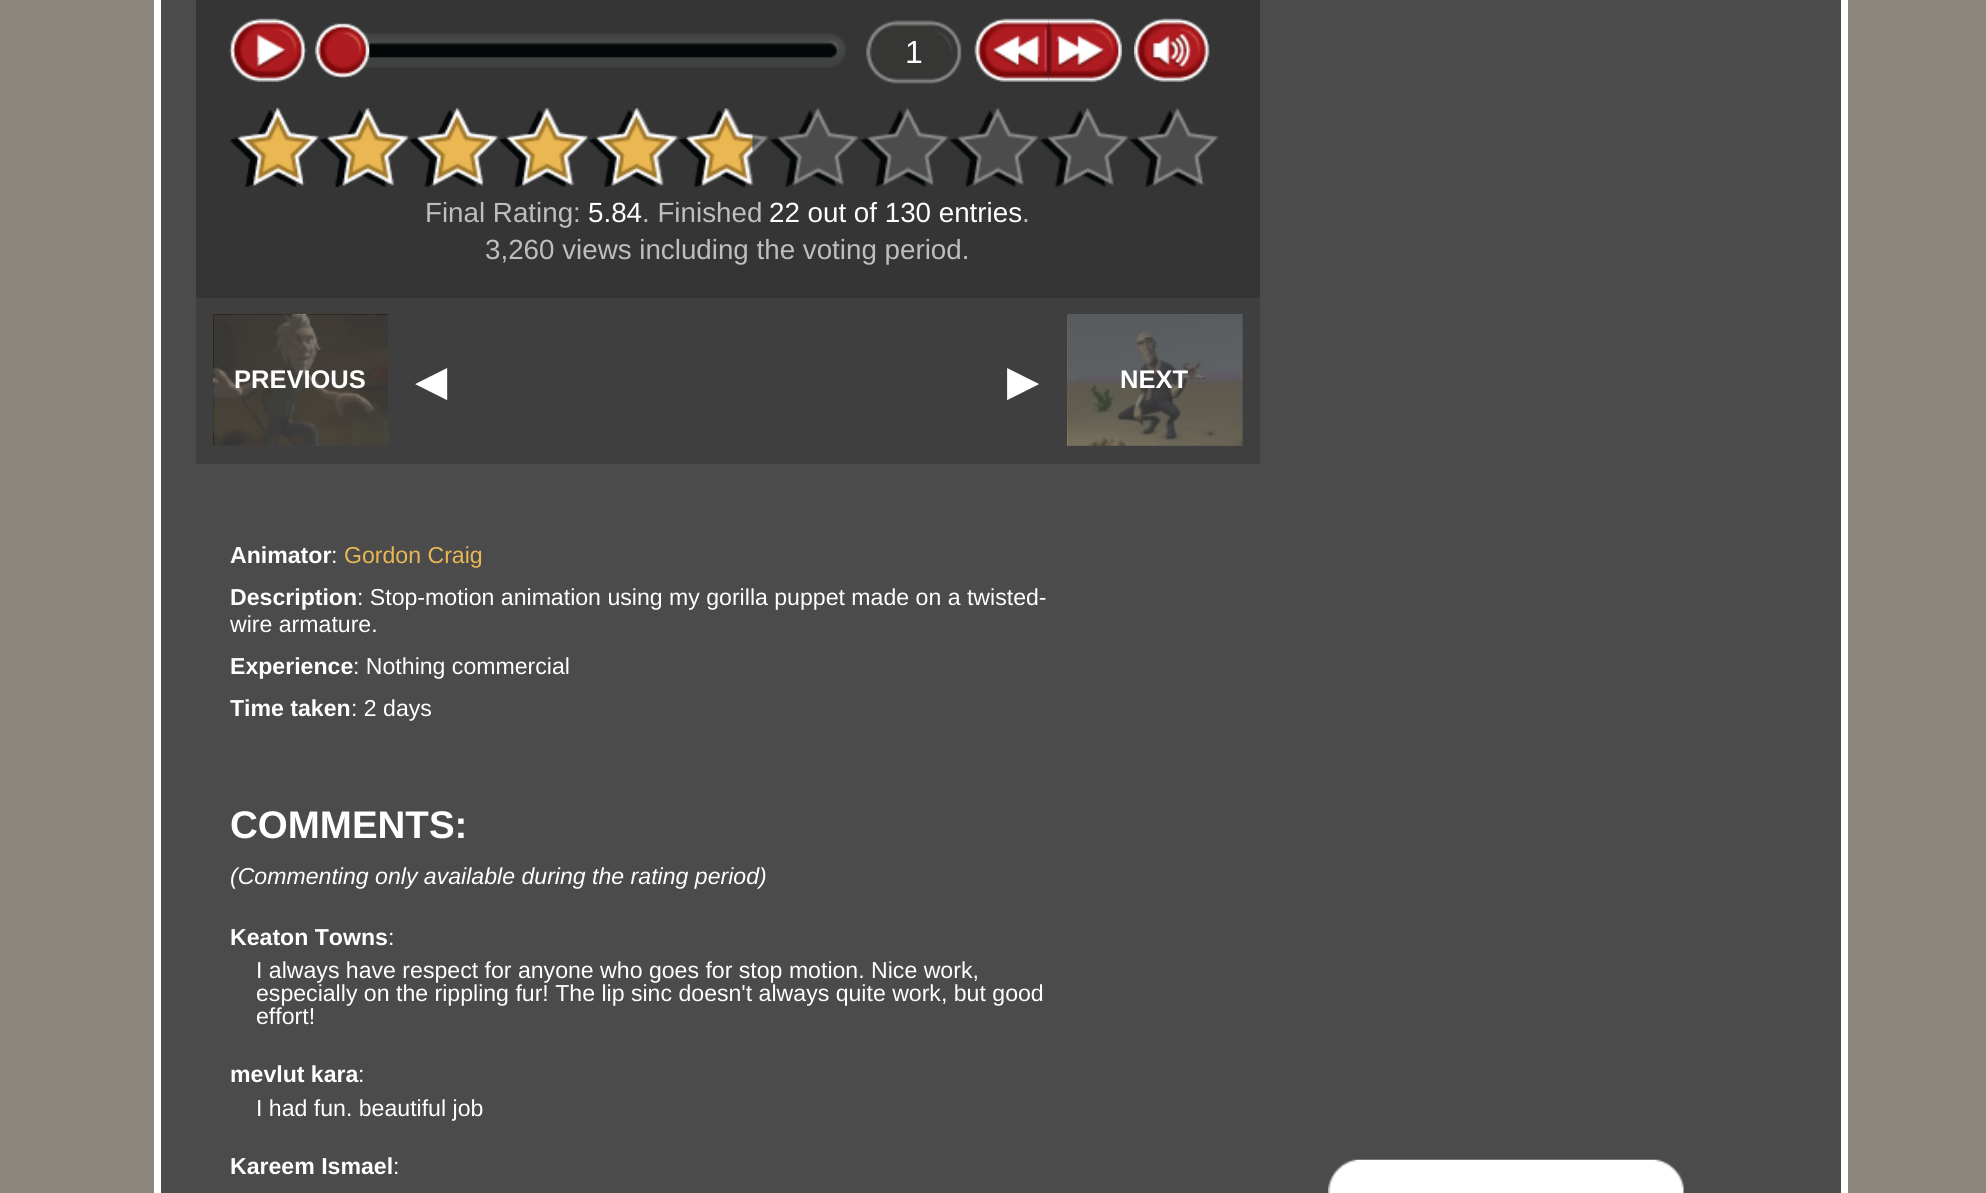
#include <cairo/cairo.h>
#include <math.h>
#include <stddef.h>

static cairo_t *cr;

static void use_color(int r, int g, int b) {
  cairo_set_source_rgb(cr, r / 255.0, g / 255.0, b / 255.0);
}

static void text(double x, double y, const char *s, const char *family, double size, int italic, int bold, int r, int g, int b) {
  cairo_select_font_face(cr, family, italic ? CAIRO_FONT_SLANT_ITALIC : CAIRO_FONT_SLANT_NORMAL,
    bold ? CAIRO_FONT_WEIGHT_BOLD : CAIRO_FONT_WEIGHT_NORMAL);
  cairo_set_font_size(cr, size);
  use_color(r, g, b);
  cairo_move_to(cr, x, y);
  cairo_show_text(cr, s);
}

static void box(double x, double y, double w, double h, int r, int g, int b) {
  use_color(r, g, b);
  cairo_rectangle(cr, x, y, w, h);
  cairo_fill(cr);
}

static void picture(const char *path, double x, double y, double w, double h) {
  cairo_surface_t *image = cairo_image_surface_create_from_png(path);
  cairo_save(cr);
  cairo_set_source_surface(cr, image, x, y);
  cairo_rectangle(cr, x, y, w, h);
  cairo_fill(cr);
  cairo_restore(cr);
  cairo_surface_destroy(image);
}

static void draw(void) {
  use_color(140, 134, 125);
  cairo_paint(cr);
  box(161, 0, 1680, 1193, 75, 75, 75);
  box(1841, 0, 7, 1193, 255, 255, 255);
  box(154, 0, 7, 1193, 255, 255, 255);
  box(196, 0, 1064, 298, 53, 53, 53);
  picture("img_01.png", 229, 18, 78, 64);
  picture("img_02.png", 360, 33, 486, 35);
  picture("img_03.png", 315, 23, 55, 55);
  picture("img_04.png", 866, 20, 96, 64);
  picture("img_05.png", 974, 18, 75, 64);
  picture("img_06.png", 1048, 18, 74, 64);
  picture("img_07.png", 1134, 18, 76, 64);
  picture("img_08.png", 230, 108, 988, 79);
  picture("img_09.png", 230, 108, 523, 79);
  box(196, 298, 1064, 166, 63, 63, 63);
  box(1068, 315, 175, 131, 71, 71, 71);
  box(214, 315, 175, 131, 71, 71, 71);
  picture("img_10.png", 213, 314, 176, 132);
  picture("img_11.png", 1067, 314, 176, 132);
  picture("img_12.png", 1328, 1159, 356, 34);
  text(905, 63, "1", "Liberation Sans", 32, 0, 0, 255, 255, 255);
  text(425, 222, "Final Rating:", "Liberation Sans", 27.75, 0, 0, 190, 190, 190);
  text(588, 222, "5.84", "Liberation Sans", 27.75, 0, 0, 255, 255, 255);
  text(642, 222, ". Finished", "Liberation Sans", 27.75, 0, 0, 190, 190, 190);
  text(769, 222, "22 out of 130 entries", "Liberation Sans", 27.75, 0, 0, 255, 255, 255);
  text(1022, 222, ".", "Liberation Sans", 27.75, 0, 0, 190, 190, 190);
  text(485, 259, "3,260 views including the voting period.", "Liberation Sans", 27.75, 0, 0, 190, 190, 190);
  text(234, 388, "PREVIOUS", "Liberation Sans", 25.5, 0, 1, 255, 255, 255);
  text(415, 395, "◀", "DejaVu Sans", 42, 0, 0, 255, 255, 255);
  text(1007, 395, "▶", "DejaVu Sans", 42, 0, 0, 255, 255, 255);
  text(1120, 388, "NEXT", "Liberation Sans", 25.5, 0, 1, 255, 255, 255);
  text(230, 563, "Animator", "Liberation Sans", 23.1, 0, 1, 255, 255, 255);
  text(331, 563, ":", "Liberation Sans", 23.1, 0, 0, 255, 255, 255);
  text(344, 563, "Gordon Craig", "Liberation Sans", 23.1, 0, 0, 233, 183, 83);
  text(230, 605, "Description", "Liberation Sans", 23.1, 0, 1, 255, 255, 255);
  text(357, 605, ": Stop-motion animation using my gorilla puppet made on a twisted-", "Liberation Sans", 23.1, 0, 0, 255, 255, 255);
  text(230, 632, "wire armature.", "Liberation Sans", 23.1, 0, 0, 255, 255, 255);
  text(230, 674, "Experience", "Liberation Sans", 23.1, 0, 1, 255, 255, 255);
  text(353, 674, ": Nothing commercial", "Liberation Sans", 23.1, 0, 0, 255, 255, 255);
  text(230, 716, "Time taken", "Liberation Sans", 23.1, 0, 1, 255, 255, 255);
  text(351, 716, ": 2 days", "Liberation Sans", 23.1, 0, 0, 255, 255, 255);
  text(230, 838, "COMMENTS:", "Liberation Sans", 38.5, 0, 1, 255, 255, 255);
  text(230, 884, "(Commenting only available during the rating period)", "Liberation Sans", 23.1, 1, 0, 255, 255, 255);
  text(230, 945, "Keaton Towns", "Liberation Sans", 23.1, 0, 1, 255, 255, 255);
  text(388, 945, ":", "Liberation Sans", 23.1, 0, 0, 255, 255, 255);
  text(256, 978, "I always have respect for anyone who goes for stop motion. Nice work,", "Liberation Sans", 23.1, 0, 0, 255, 255, 255);
  text(256, 1001, "especially on the rippling fur! The lip sinc doesn't always quite work, but good", "Liberation Sans", 23.1, 0, 0, 255, 255, 255);
  text(256, 1024, "effort!", "Liberation Sans", 23.1, 0, 0, 255, 255, 255);
  text(230, 1082, "mevlut kara", "Liberation Sans", 23.1, 0, 1, 255, 255, 255);
  text(358, 1082, ":", "Liberation Sans", 23.1, 0, 0, 255, 255, 255);
  text(256, 1116, "I had fun. beautiful job", "Liberation Sans", 23.1, 0, 0, 255, 255, 255);
  text(230, 1174, "Kareem Ismael", "Liberation Sans", 23.1, 0, 1, 255, 255, 255);
  text(393, 1174, ":", "Liberation Sans", 23.1, 0, 0, 255, 255, 255);
}

int main(void) {
  cairo_surface_t *surface = cairo_image_surface_create(CAIRO_FORMAT_RGB24, 1986, 1193);
  cr = cairo_create(surface);
  cairo_font_options_t *options = cairo_font_options_create();
  cairo_font_options_set_hint_metrics(options, CAIRO_HINT_METRICS_OFF);
  cairo_font_options_set_hint_style(options, CAIRO_HINT_STYLE_NONE);
  cairo_set_font_options(cr, options);
  cairo_set_miter_limit(cr, 4);
  draw();
  cairo_surface_write_to_png(surface, "out.png");
  cairo_font_options_destroy(options);
  cairo_destroy(cr);
  cairo_surface_destroy(surface);
  return 0;
}
